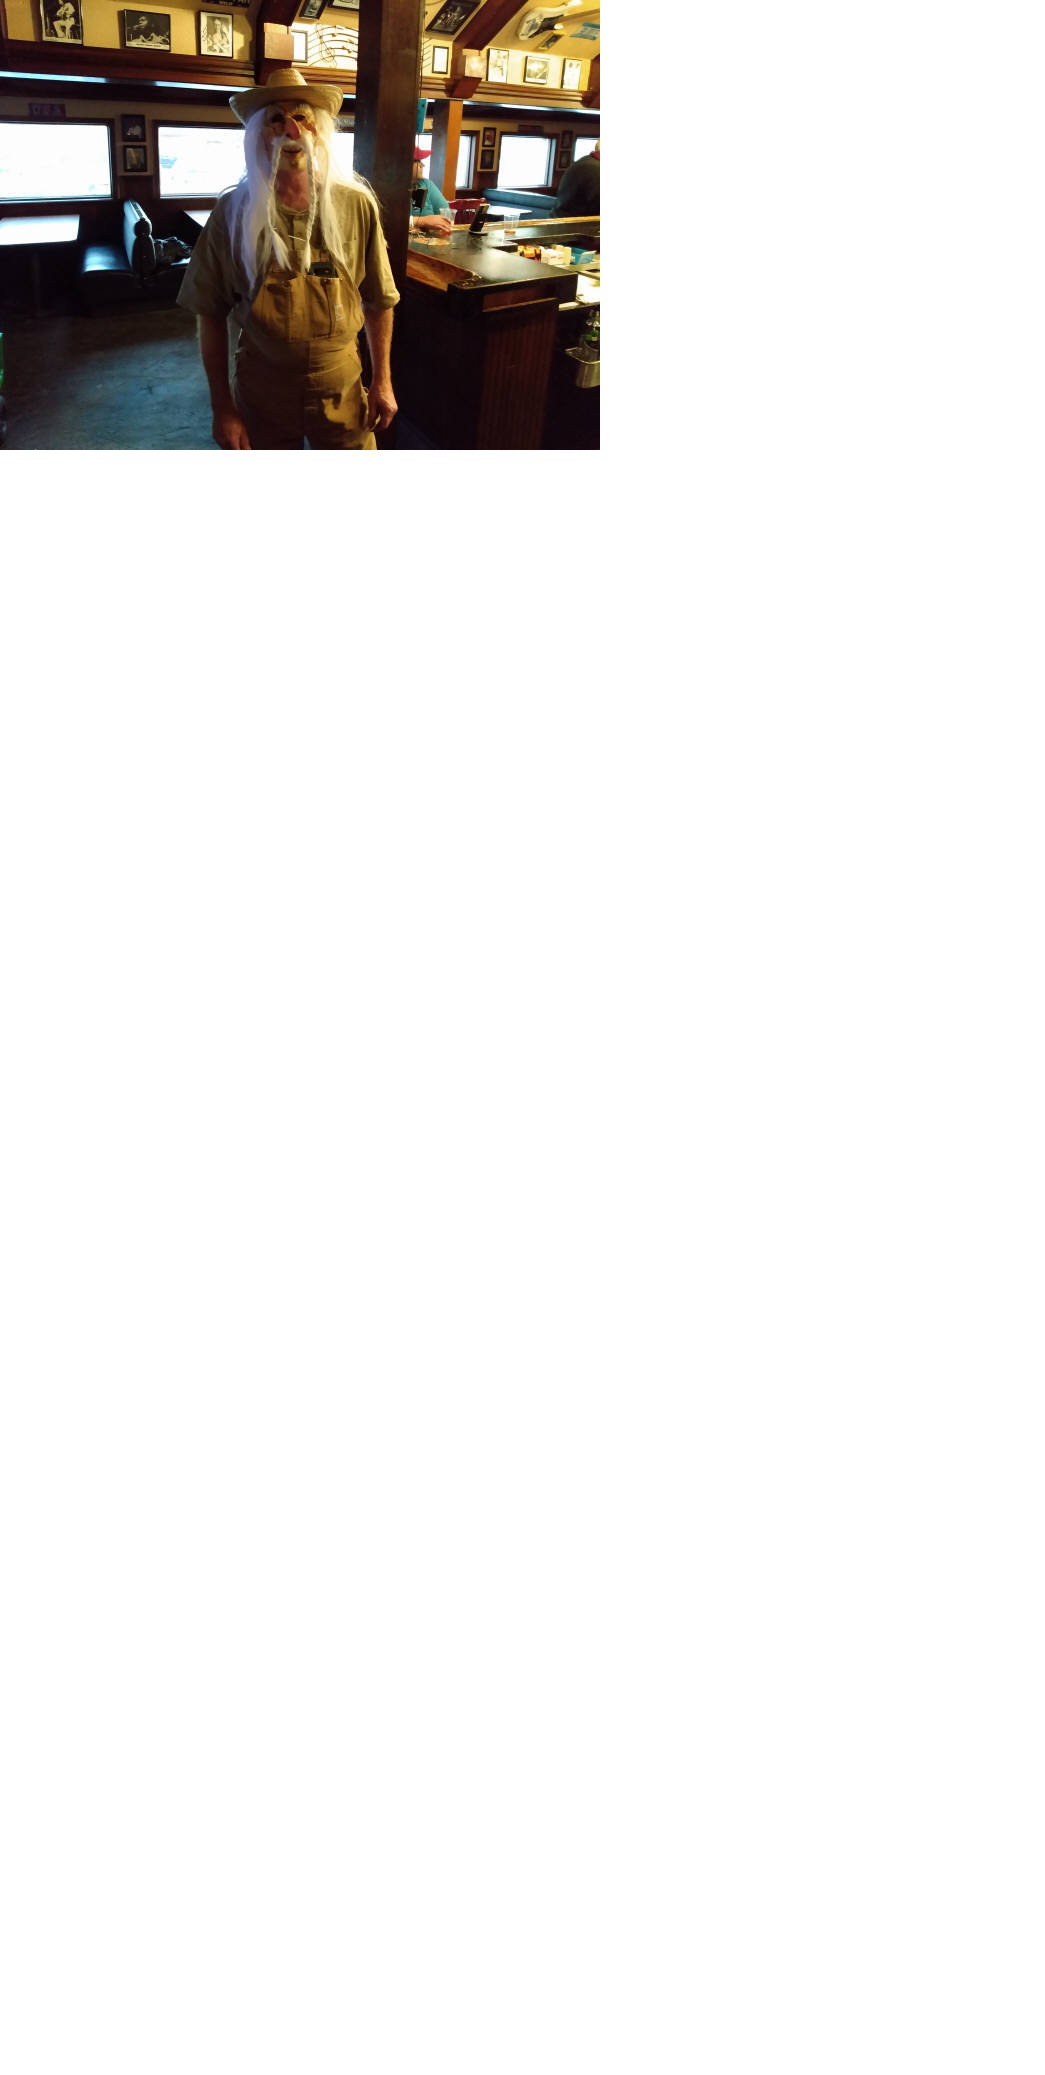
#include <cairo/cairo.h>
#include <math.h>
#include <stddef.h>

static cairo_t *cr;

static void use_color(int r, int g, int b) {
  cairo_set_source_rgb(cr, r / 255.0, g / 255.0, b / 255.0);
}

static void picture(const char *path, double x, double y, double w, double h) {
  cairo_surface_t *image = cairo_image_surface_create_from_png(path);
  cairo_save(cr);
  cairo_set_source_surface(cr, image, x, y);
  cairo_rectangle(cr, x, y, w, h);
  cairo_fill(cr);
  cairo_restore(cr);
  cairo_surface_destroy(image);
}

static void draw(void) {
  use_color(255, 255, 255);
  cairo_paint(cr);
  picture("img_01.png", 0, 0, 600, 450);
}

int main(void) {
  cairo_surface_t *surface = cairo_image_surface_create(CAIRO_FORMAT_RGB24, 1045, 2075);
  cr = cairo_create(surface);
  cairo_font_options_t *options = cairo_font_options_create();
  cairo_font_options_set_hint_metrics(options, CAIRO_HINT_METRICS_OFF);
  cairo_font_options_set_hint_style(options, CAIRO_HINT_STYLE_NONE);
  cairo_set_font_options(cr, options);
  cairo_set_miter_limit(cr, 4);
  draw();
  cairo_surface_write_to_png(surface, "out.png");
  cairo_font_options_destroy(options);
  cairo_destroy(cr);
  cairo_surface_destroy(surface);
  return 0;
}
